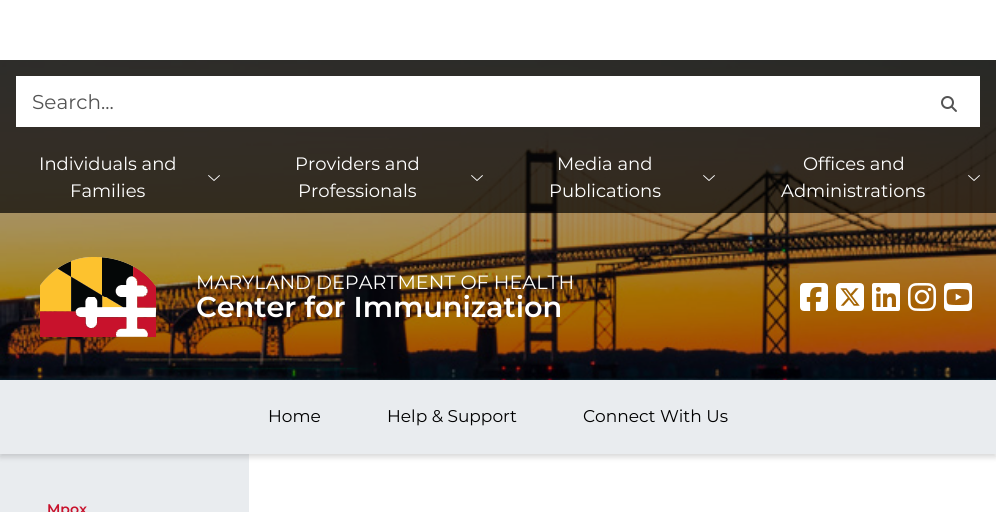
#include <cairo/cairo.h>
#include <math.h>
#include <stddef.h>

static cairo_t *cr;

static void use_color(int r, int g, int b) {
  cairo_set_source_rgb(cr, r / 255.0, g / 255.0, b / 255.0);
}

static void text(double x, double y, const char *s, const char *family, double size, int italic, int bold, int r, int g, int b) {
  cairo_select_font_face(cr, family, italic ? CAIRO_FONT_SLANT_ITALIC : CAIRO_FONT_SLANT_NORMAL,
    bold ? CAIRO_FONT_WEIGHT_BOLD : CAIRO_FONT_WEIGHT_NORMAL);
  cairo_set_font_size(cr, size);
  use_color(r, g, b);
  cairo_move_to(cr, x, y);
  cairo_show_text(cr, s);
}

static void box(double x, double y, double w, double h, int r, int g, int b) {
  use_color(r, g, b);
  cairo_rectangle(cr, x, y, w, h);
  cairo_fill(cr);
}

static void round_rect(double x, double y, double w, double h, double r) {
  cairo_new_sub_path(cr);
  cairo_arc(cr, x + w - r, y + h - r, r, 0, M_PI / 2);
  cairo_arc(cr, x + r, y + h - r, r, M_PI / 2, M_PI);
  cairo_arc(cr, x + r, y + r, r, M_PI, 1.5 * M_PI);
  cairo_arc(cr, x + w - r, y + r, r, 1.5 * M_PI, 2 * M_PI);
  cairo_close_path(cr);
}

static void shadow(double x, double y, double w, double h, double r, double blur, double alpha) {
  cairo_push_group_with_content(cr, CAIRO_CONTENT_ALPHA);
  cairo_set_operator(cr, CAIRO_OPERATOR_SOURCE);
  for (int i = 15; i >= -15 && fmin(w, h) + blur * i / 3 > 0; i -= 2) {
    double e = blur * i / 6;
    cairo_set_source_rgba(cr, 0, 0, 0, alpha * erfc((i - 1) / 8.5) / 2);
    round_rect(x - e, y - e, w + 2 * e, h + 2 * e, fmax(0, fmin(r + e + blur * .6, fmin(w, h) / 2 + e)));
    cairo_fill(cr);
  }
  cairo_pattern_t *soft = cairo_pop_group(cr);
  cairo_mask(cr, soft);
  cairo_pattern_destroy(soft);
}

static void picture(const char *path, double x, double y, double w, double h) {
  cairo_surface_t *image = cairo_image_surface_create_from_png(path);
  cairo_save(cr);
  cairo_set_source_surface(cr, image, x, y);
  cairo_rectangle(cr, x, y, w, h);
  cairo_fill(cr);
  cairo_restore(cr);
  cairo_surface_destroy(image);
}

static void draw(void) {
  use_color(255, 255, 255);
  cairo_paint(cr);
  picture("img_01.png", 0, 60, 996, 320);
  cairo_set_source_rgba(cr, 0, 0, 0, 0.8);
  cairo_rectangle(cr, 0, 60, 996, 153);
  cairo_fill(cr);
  box(16, 76, 964, 51, 255, 255, 255);
  picture("img_02.png", 941, 96, 16, 16);
  picture("img_03.png", 208, 175, 12, 6);
  picture("img_04.png", 471, 175, 12, 6);
  picture("img_05.png", 703, 175, 12, 6);
  picture("img_06.png", 968, 175, 12, 6);
  cairo_set_source_rgba(cr, 0, 0, 0, 0.35);
  cairo_rectangle(cr, 0, 213, 996, 167);
  cairo_fill(cr);
  picture("img_07.png", 40, 257, 116, 80);
  picture("img_08.png", 800, 283, 28, 28);
  picture("img_09.png", 836, 283, 28, 28);
  picture("img_10.png", 872, 283, 28, 28);
  picture("img_11.png", 908, 283, 28, 28);
  picture("img_12.png", 944, 283, 28, 28);
  box(0, 454, 249, 58, 233, 236, 239);
  use_color(0, 0, 0);
  shadow(0, 383, 996, 74, 0, 3, 0.16);
  box(0, 380, 996, 74, 233, 236, 239);
  text(32, 109, "Search...", "Montserrat Thin", 20, 0, 0, 84, 84, 84);
  text(39, 170, "Individuals and", "Montserrat Thin", 18, 0, 0, 255, 255, 255);
  text(70, 197, "Families", "Montserrat Thin", 18, 0, 0, 255, 255, 255);
  text(295, 170, "Providers and", "Montserrat Thin", 18, 0, 0, 255, 255, 255);
  text(298, 197, "Professionals", "Montserrat Thin", 18, 0, 0, 255, 255, 255);
  text(557, 170, "Media and", "Montserrat Thin", 18, 0, 0, 255, 255, 255);
  text(549, 197, "Publications", "Montserrat Thin", 18, 0, 0, 255, 255, 255);
  text(803, 170, "Offices and", "Montserrat Thin", 18, 0, 0, 255, 255, 255);
  text(781, 197, "Administrations", "Montserrat Thin", 18, 0, 0, 255, 255, 255);
  text(196, 289, "MARYLAND DEPARTMENT OF HEALTH", "Montserrat Thin", 19.25, 0, 0, 255, 255, 255);
  text(196, 317, "Center for Immunization", "Montserrat SemiBold", 28.75, 0, 0, 255, 255, 255);
  text(268, 422, "Home", "Montserrat Thin", 17, 0, 0, 0, 0, 0);
  text(387, 422, "Help & Support", "Montserrat Thin", 17, 0, 0, 0, 0, 0);
  text(583, 422, "Connect With Us", "Montserrat Thin", 17, 0, 0, 0, 0, 0);
  text(47, 514, "Mpox", "Montserrat SemiBold", 14, 0, 0, 200, 18, 44);
}

int main(void) {
  cairo_surface_t *surface = cairo_image_surface_create(CAIRO_FORMAT_RGB24, 996, 512);
  cr = cairo_create(surface);
  cairo_font_options_t *options = cairo_font_options_create();
  cairo_font_options_set_hint_metrics(options, CAIRO_HINT_METRICS_OFF);
  cairo_font_options_set_hint_style(options, CAIRO_HINT_STYLE_NONE);
  cairo_set_font_options(cr, options);
  cairo_set_miter_limit(cr, 4);
  draw();
  cairo_surface_write_to_png(surface, "out.png");
  cairo_font_options_destroy(options);
  cairo_destroy(cr);
  cairo_surface_destroy(surface);
  return 0;
}
